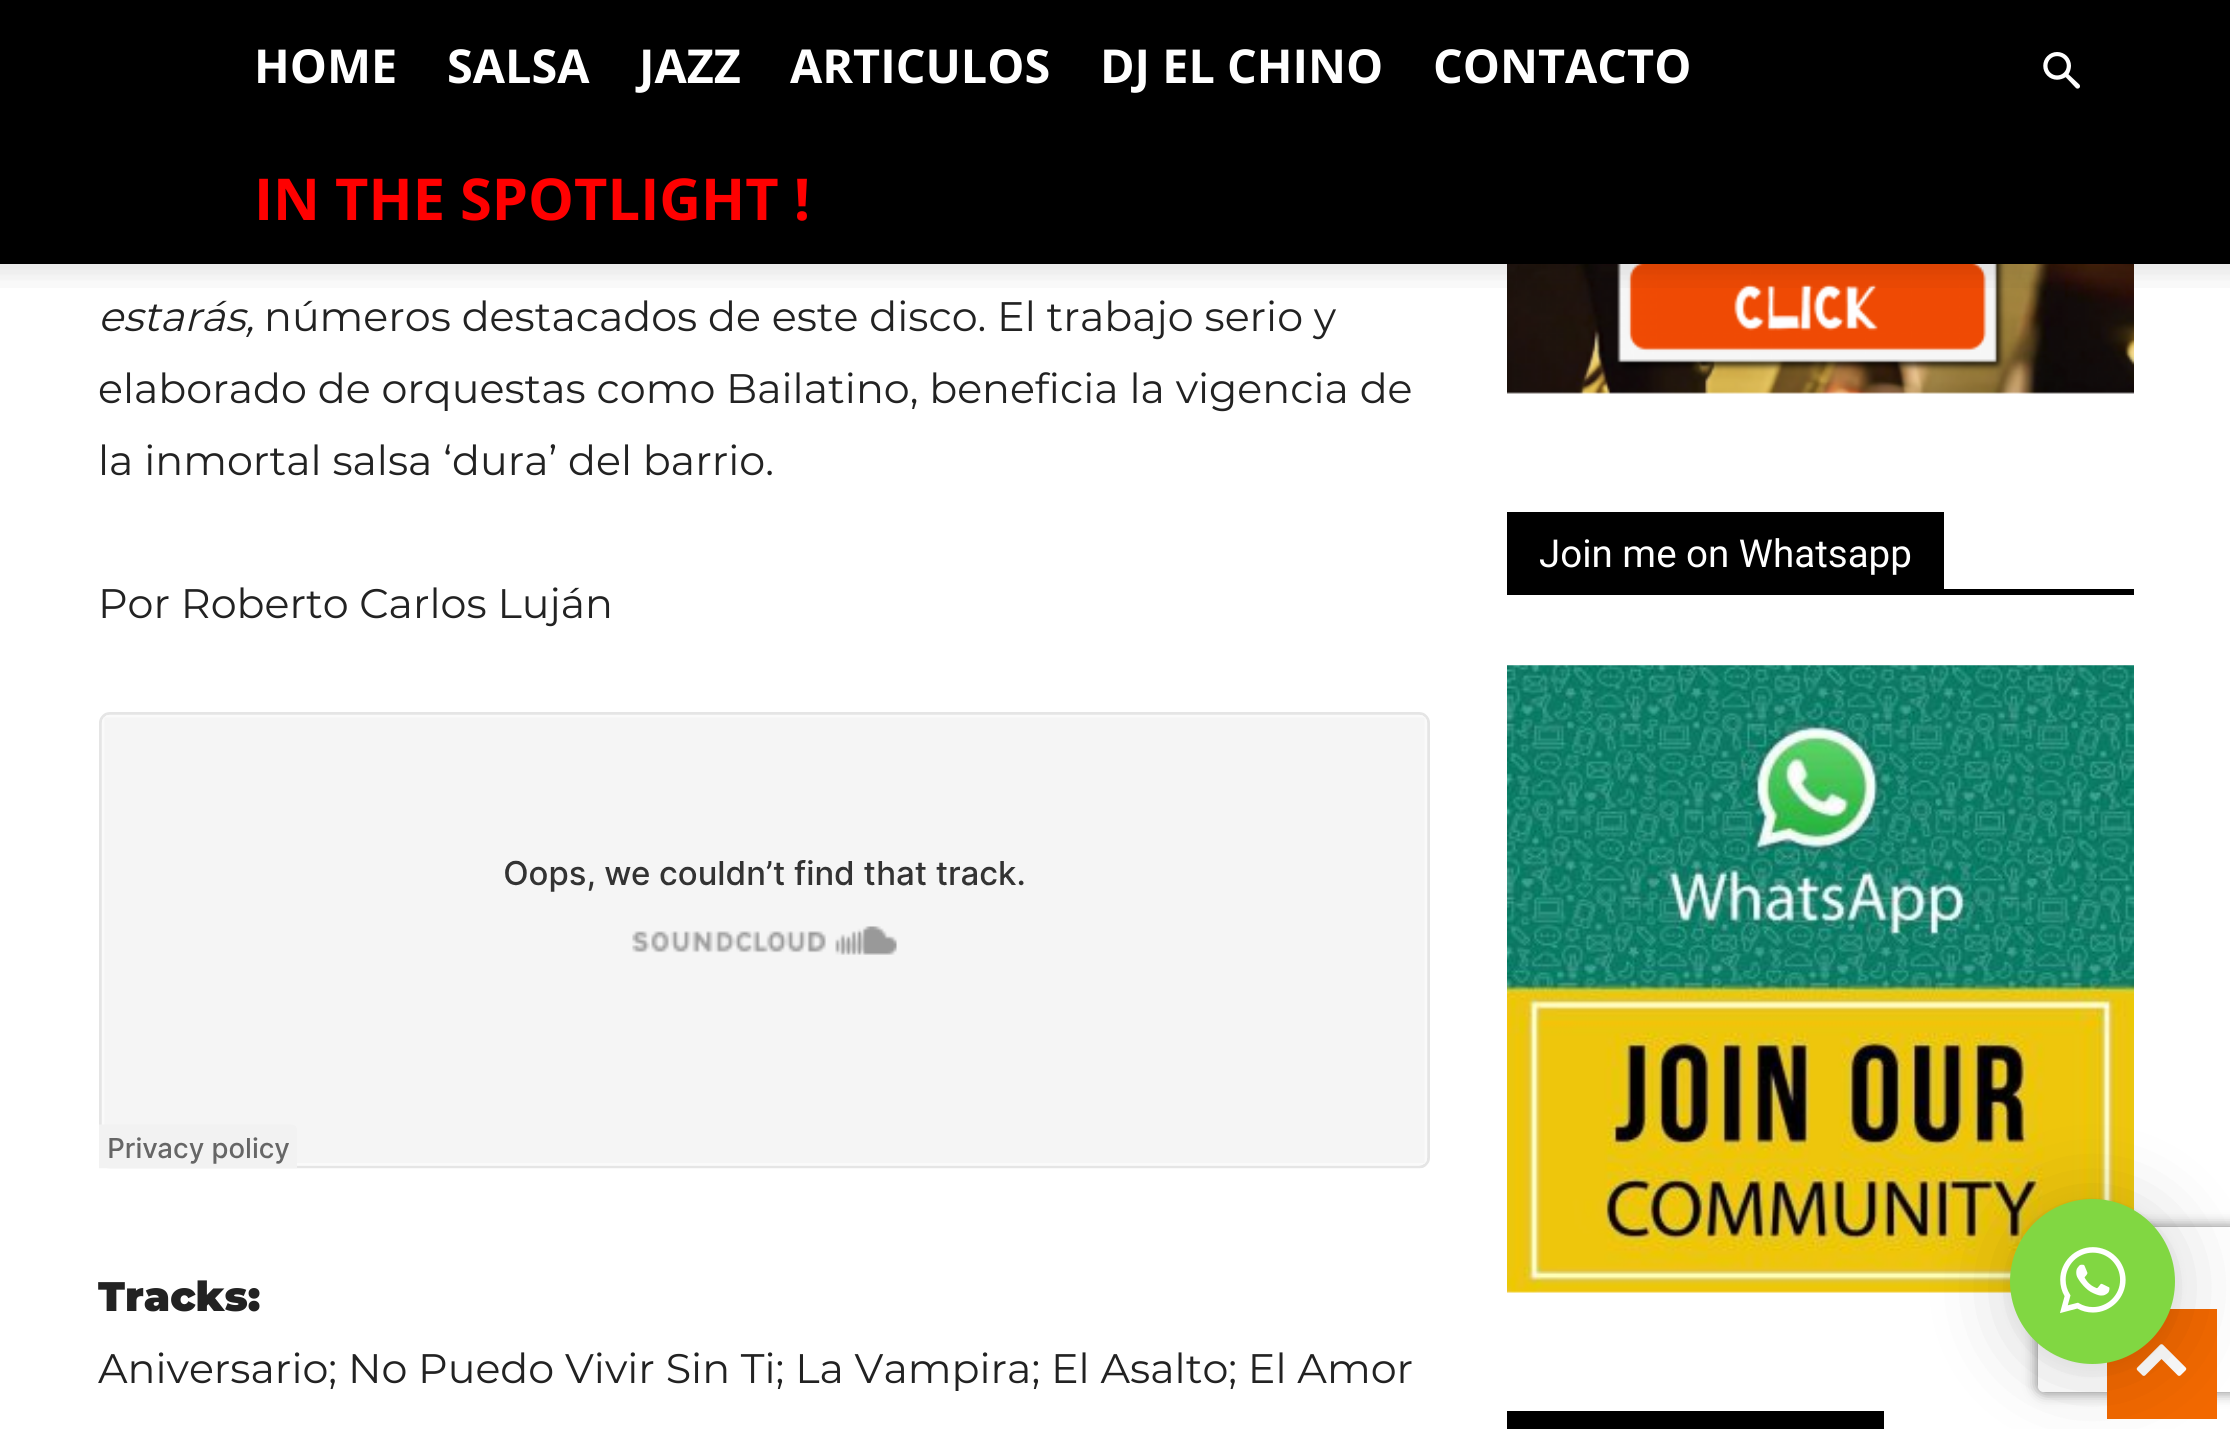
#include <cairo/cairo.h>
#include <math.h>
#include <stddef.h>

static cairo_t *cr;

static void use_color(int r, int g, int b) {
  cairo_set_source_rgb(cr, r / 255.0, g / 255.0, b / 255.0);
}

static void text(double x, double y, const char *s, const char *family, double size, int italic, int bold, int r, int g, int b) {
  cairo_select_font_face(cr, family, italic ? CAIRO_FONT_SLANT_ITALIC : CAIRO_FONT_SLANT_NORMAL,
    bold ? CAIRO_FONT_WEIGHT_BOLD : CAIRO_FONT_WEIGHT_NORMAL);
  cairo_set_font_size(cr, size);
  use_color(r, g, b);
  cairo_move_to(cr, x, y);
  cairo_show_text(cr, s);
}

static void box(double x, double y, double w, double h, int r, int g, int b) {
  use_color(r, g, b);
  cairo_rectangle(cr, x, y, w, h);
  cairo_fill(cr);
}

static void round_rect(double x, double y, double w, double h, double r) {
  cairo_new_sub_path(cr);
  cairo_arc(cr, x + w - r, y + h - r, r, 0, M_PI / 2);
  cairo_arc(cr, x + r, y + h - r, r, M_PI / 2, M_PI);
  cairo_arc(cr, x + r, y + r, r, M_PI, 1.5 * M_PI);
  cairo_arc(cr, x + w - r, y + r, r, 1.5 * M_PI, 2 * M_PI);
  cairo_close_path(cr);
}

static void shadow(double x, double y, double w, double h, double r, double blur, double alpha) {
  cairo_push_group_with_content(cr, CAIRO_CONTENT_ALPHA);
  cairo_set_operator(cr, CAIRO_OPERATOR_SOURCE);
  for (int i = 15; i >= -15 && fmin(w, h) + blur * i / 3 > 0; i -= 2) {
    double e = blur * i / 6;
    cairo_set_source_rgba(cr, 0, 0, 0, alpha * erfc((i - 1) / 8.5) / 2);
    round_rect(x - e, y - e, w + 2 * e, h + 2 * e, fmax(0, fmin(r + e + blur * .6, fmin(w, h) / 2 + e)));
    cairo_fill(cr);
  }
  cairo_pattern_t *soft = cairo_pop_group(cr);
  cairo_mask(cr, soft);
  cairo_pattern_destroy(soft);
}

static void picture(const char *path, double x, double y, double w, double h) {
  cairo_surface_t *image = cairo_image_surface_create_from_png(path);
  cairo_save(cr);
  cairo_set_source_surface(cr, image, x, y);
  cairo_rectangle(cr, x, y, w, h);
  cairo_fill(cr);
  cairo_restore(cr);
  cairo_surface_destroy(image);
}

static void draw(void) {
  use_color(255, 255, 255);
  cairo_paint(cr);
  box(0, 0, 2230, 264, 0, 0, 0);
  picture("img_01.png", 2043, 52, 37, 37);
  picture("img_04.png", 1507, 264, 627, 130);
  picture("img_02.png", 0, 264, 2230, 24);
  picture("img_03.png", 99, 712, 1331, 457);
  box(1507, 589, 627, 6, 0, 0, 0);
  box(1507, 512, 437, 77, 0, 0, 0);
  picture("img_05.png", 1507, 665, 627, 628);
  box(1507, 1411, 377, 18, 0, 0, 0);
  cairo_save(cr);
  cairo_set_fill_rule(cr, CAIRO_FILL_RULE_EVEN_ODD);
  cairo_new_path(cr);
  cairo_move_to(cr, 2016, 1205);
  cairo_line_to(cr, 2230, 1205);
  cairo_line_to(cr, 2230, 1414);
  cairo_line_to(cr, 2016, 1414);
  cairo_close_path(cr);
  cairo_move_to(cr, 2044, 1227);
  cairo_line_to(cr, 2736, 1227);
  cairo_curve_to(cr, 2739.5, 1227, 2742, 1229.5, 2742, 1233);
  cairo_line_to(cr, 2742, 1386);
  cairo_curve_to(cr, 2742, 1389.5, 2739.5, 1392, 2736, 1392);
  cairo_line_to(cr, 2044, 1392);
  cairo_curve_to(cr, 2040.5, 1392, 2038, 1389.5, 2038, 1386);
  cairo_line_to(cr, 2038, 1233);
  cairo_curve_to(cr, 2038, 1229.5, 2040.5, 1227, 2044, 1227);
  cairo_close_path(cr);
  cairo_clip(cr);
  use_color(128, 128, 128);
  shadow(2038, 1227, 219, 165, 6, 7, 1);
  cairo_restore(cr);
  box(2107, 1309, 110, 110, 242, 104, 0);
  picture("img_07.png", 2136, 1344, 51, 32);
  use_color(0, 0, 0);
  shadow(2010, 1205, 165, 165, 82.5, 44, 0.16);
  shadow(2010, 1202, 165, 165, 82.5, 8, 0.06);
  use_color(129, 215, 66);
  cairo_arc(cr, 2092.5, 1281.5, 82.5, 0, 2 * M_PI);
  cairo_fill(cr);
  picture("img_06.png", 2060, 1247, 66, 67);
  text(254, 83, "HOME", "Open Sans", 46.75, 0, 1, 255, 255, 255);
  text(447, 83, "SALSA", "Open Sans", 46.75, 0, 1, 255, 255, 255);
  text(639, 83, "JAZZ", "Open Sans", 46.75, 0, 1, 255, 255, 255);
  text(790, 83, "ARTICULOS", "Open Sans", 46.75, 0, 1, 255, 255, 255);
  text(1100, 83, "DJ EL CHINO", "Open Sans", 46.75, 0, 1, 255, 255, 255);
  text(1433, 83, "CONTACTO", "Open Sans", 46.75, 0, 1, 255, 255, 255);
  text(254, 220, "IN THE SPOTLIGHT !", "Open Sans", 57.75, 0, 1, 255, 0, 0);
  text(98, 331, "estarás,", "Montserrat", 41.25, 1, 0, 34, 34, 34);
  text(264, 331, "números destacados de este disco. El trabajo serio y", "Montserrat", 41.25, 0, 0, 34, 34, 34);
  text(98, 403, "elaborado de orquestas como Bailatino, beneficia la vigencia de", "Montserrat", 41.25, 0, 0, 34, 34, 34);
  text(98, 475, "la inmortal salsa ‘dura’ del barrio.", "Montserrat", 41.25, 0, 0, 34, 34, 34);
  text(98, 618, "Por Roberto Carlos Luján", "Montserrat", 41.25, 0, 0, 34, 34, 34);
  text(98, 1311, "Tracks:", "Montserrat Black", 41.25, 0, 0, 34, 34, 34);
  text(98, 1383, "Aniversario; No Puedo Vivir Sin Ti; La Vampira; El Asalto; El Amor", "Montserrat", 41.25, 0, 0, 34, 34, 34);
  text(1539, 567, "Join me on Whatsapp", "Roboto", 38.5, 0, 0, 255, 255, 255);
}

int main(void) {
  cairo_surface_t *surface = cairo_image_surface_create(CAIRO_FORMAT_RGB24, 2230, 1429);
  cr = cairo_create(surface);
  cairo_font_options_t *options = cairo_font_options_create();
  cairo_font_options_set_hint_metrics(options, CAIRO_HINT_METRICS_OFF);
  cairo_font_options_set_hint_style(options, CAIRO_HINT_STYLE_NONE);
  cairo_set_font_options(cr, options);
  cairo_set_miter_limit(cr, 4);
  draw();
  cairo_surface_write_to_png(surface, "out.png");
  cairo_font_options_destroy(options);
  cairo_destroy(cr);
  cairo_surface_destroy(surface);
  return 0;
}
